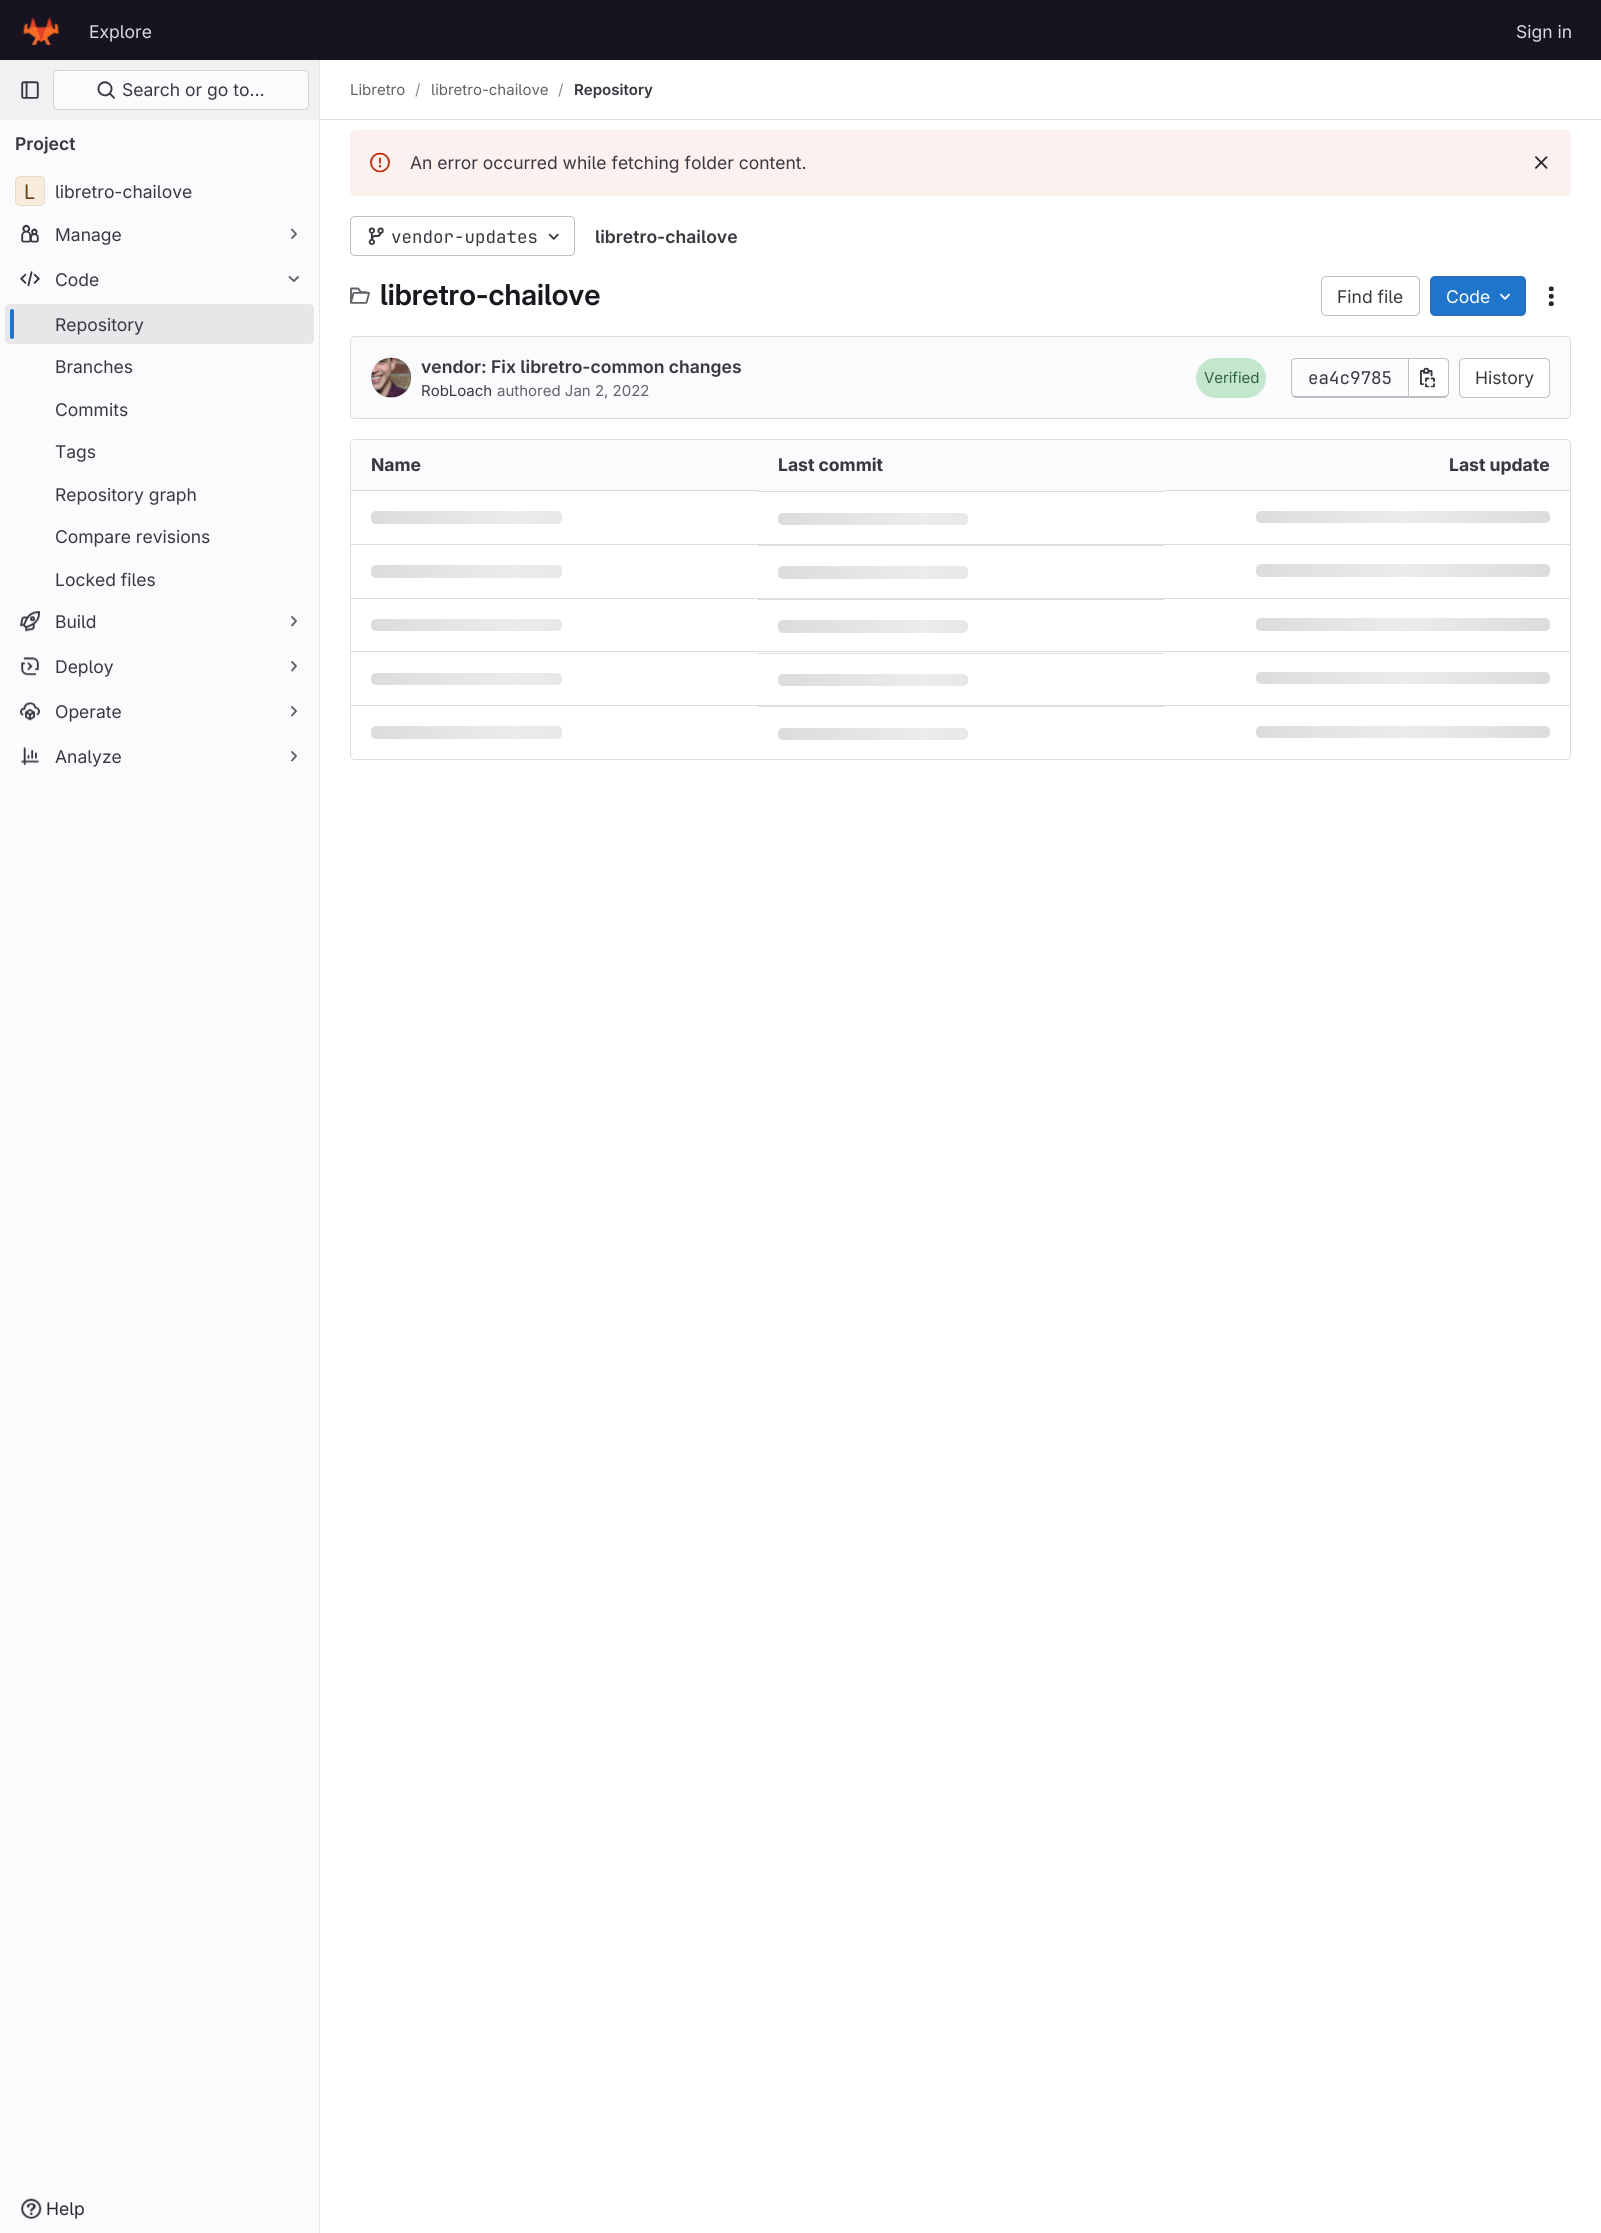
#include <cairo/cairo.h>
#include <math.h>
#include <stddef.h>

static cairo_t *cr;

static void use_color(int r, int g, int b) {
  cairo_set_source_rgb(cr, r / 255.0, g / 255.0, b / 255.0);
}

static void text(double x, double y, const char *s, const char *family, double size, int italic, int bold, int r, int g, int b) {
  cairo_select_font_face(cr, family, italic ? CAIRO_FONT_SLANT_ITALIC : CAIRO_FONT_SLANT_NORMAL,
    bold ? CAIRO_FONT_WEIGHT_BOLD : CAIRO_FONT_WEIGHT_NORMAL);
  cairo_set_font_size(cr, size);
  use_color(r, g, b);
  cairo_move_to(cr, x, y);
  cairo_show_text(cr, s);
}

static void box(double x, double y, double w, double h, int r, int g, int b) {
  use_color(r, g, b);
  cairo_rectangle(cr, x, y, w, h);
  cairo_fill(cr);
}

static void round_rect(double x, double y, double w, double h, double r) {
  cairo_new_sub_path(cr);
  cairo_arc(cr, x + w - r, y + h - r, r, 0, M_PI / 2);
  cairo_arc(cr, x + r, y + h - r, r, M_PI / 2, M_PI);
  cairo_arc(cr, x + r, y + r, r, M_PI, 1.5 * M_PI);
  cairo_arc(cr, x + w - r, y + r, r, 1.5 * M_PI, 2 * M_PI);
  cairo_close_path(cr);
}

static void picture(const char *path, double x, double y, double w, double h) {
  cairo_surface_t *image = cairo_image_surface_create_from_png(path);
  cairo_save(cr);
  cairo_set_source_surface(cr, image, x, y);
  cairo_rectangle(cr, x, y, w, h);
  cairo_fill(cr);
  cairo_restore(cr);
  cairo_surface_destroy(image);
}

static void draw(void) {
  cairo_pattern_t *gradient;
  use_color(255, 255, 255);
  cairo_paint(cr);
  box(0, 0, 1601, 60, 23, 19, 33);
  picture("img_01.png", 22, 17, 37, 28);
  box(0, 120, 319, 2113, 251, 250, 253);
  box(319, 60, 1, 2173, 231, 230, 233);
  box(0, 60, 319, 60, 241, 240, 243);
  picture("img_02.png", 21, 81, 18, 18);
  use_color(251, 250, 253);
  round_rect(53, 70, 256, 40, 5);
  cairo_fill(cr);
  round_rect(53.5, 70.5, 255, 39, 4.5);
  cairo_set_source_rgba(cr, 0.02, 0.02, 0.024, 0.16);
  cairo_set_line_width(cr, 1);
  cairo_stroke(cr);
  picture("img_03.png", 97, 81, 18, 18);
  use_color(247, 236, 220);
  round_rect(15, 176, 30, 30, 5);
  cairo_fill(cr);
  round_rect(15.5, 176.5, 29, 29, 4.5);
  cairo_set_source_rgba(cr, 0.02, 0.02, 0.024, 0.08);
  cairo_stroke(cr);
  picture("img_04.png", 21, 224, 18, 19);
  cairo_new_path(cr);
  cairo_move_to(cr, 292, 229.5);
  cairo_line_to(cr, 296, 234);
  cairo_line_to(cr, 292, 238);
  use_color(98, 97, 104);
  cairo_set_line_width(cr, 1.9);
  cairo_set_line_cap(cr, CAIRO_LINE_CAP_ROUND);
  cairo_set_line_join(cr, CAIRO_LINE_JOIN_ROUND);
  cairo_stroke(cr);
  picture("img_05.png", 20, 271, 20, 16);
  cairo_new_path(cr);
  cairo_move_to(cr, 298, 277);
  cairo_line_to(cr, 294, 281);
  cairo_line_to(cr, 289.5, 277);
  cairo_stroke(cr);
  use_color(231, 230, 233);
  round_rect(5, 304, 309, 40, 5);
  cairo_fill(cr);
  use_color(31, 117, 203);
  round_rect(10, 309, 4, 30, 2);
  cairo_fill(cr);
  picture("img_06.png", 20, 611, 20, 21);
  cairo_new_path(cr);
  cairo_move_to(cr, 292, 617);
  cairo_line_to(cr, 296, 621);
  cairo_line_to(cr, 292, 625.5);
  use_color(98, 97, 104);
  cairo_stroke(cr);
  picture("img_07.png", 21, 657, 18, 19);
  cairo_new_path(cr);
  cairo_move_to(cr, 292, 662);
  cairo_line_to(cr, 296, 666);
  cairo_line_to(cr, 292, 670.5);
  cairo_stroke(cr);
  picture("img_08.png", 20, 702, 20, 19);
  cairo_new_path(cr);
  cairo_move_to(cr, 292, 707);
  cairo_line_to(cr, 296, 711);
  cairo_line_to(cr, 292, 715.5);
  cairo_stroke(cr);
  picture("img_09.png", 21, 747, 18, 19);
  cairo_new_path(cr);
  cairo_move_to(cr, 292, 752);
  cairo_line_to(cr, 296, 756);
  cairo_line_to(cr, 292, 760.5);
  cairo_stroke(cr);
  picture("img_10.png", 21, 2198, 21, 21);
  box(320, 119, 1281, 1, 220, 220, 222);
  use_color(252, 241, 239);
  round_rect(350, 130, 1221, 66, 5);
  cairo_fill(cr);
  picture("img_11.png", 370, 152, 20, 21);
  picture("img_12.png", 1535, 156, 13, 13);
  round_rect(350.5, 216.5, 224, 39, 4.5);
  use_color(191, 191, 195);
  cairo_set_line_width(cr, 1);
  cairo_set_line_cap(cr, CAIRO_LINE_CAP_BUTT);
  cairo_set_line_join(cr, CAIRO_LINE_JOIN_MITER);
  cairo_stroke(cr);
  picture("img_13.png", 368, 227, 16, 18);
  picture("img_14.png", 548, 233, 11, 7);
  picture("img_15.png", 350, 287, 20, 17);
  round_rect(1321.5, 276.5, 98, 39, 4.5);
  cairo_stroke(cr);
  use_color(31, 117, 203);
  round_rect(1430.5, 276.5, 95, 39, 4.5);
  cairo_fill_preserve(cr);
  use_color(47, 104, 180);
  cairo_stroke(cr);
  picture("img_16.png", 1500, 293, 10, 7);
  picture("img_17.png", 1548, 286, 6, 21);
  use_color(251, 250, 253);
  round_rect(350.5, 336.5, 1220, 82, 4.5);
  cairo_fill_preserve(cr);
  use_color(220, 220, 222);
  cairo_stroke(cr);
  picture("img_18.png", 371, 357, 41, 41);
  cairo_arc(cr, 391, 378, 19.5, 0, 2 * M_PI);
  cairo_set_source_rgba(cr, 0.02, 0.02, 0.024, 0.08);
  cairo_stroke(cr);
  use_color(195, 230, 205);
  round_rect(1196, 358, 70, 40, 20);
  cairo_fill(cr);
  use_color(191, 191, 195);
  cairo_set_fill_rule(cr, CAIRO_FILL_RULE_EVEN_ODD);
  cairo_new_path(cr);
  cairo_move_to(cr, 1296, 358);
  cairo_line_to(cr, 1408, 358);
  cairo_line_to(cr, 1408, 398);
  cairo_line_to(cr, 1296, 398);
  cairo_curve_to(cr, 1293, 398, 1291, 395, 1291, 392);
  cairo_line_to(cr, 1291, 362);
  cairo_curve_to(cr, 1291, 360, 1293, 358, 1296, 358);
  cairo_close_path(cr);
  cairo_move_to(cr, 1296, 359);
  cairo_line_to(cr, 1408, 359);
  cairo_line_to(cr, 1408, 396);
  cairo_line_to(cr, 1296, 396);
  cairo_curve_to(cr, 1294, 396, 1292, 395, 1292, 392);
  cairo_line_to(cr, 1292, 362);
  cairo_curve_to(cr, 1292, 360, 1294, 359, 1296, 359);
  cairo_close_path(cr);
  cairo_fill(cr);
  use_color(255, 255, 255);
  cairo_new_path(cr);
  cairo_move_to(cr, 1409, 359);
  cairo_line_to(cr, 1444, 359);
  cairo_curve_to(cr, 1446, 359, 1448, 361, 1448, 363);
  cairo_line_to(cr, 1448, 392);
  cairo_curve_to(cr, 1448, 394, 1446, 396, 1444, 396);
  cairo_line_to(cr, 1409, 396);
  cairo_close_path(cr);
  cairo_fill(cr);
  use_color(191, 191, 195);
  cairo_new_path(cr);
  cairo_move_to(cr, 1409, 358);
  cairo_line_to(cr, 1444, 358);
  cairo_curve_to(cr, 1447, 358, 1449, 360, 1449, 362);
  cairo_line_to(cr, 1449, 392);
  cairo_curve_to(cr, 1449, 395, 1447, 398, 1444, 398);
  cairo_line_to(cr, 1409, 398);
  cairo_close_path(cr);
  cairo_move_to(cr, 1409, 359);
  cairo_line_to(cr, 1444, 359);
  cairo_curve_to(cr, 1446, 359, 1448, 360, 1448, 362);
  cairo_line_to(cr, 1448, 392);
  cairo_curve_to(cr, 1448, 395, 1446, 396, 1444, 396);
  cairo_line_to(cr, 1409, 396);
  cairo_close_path(cr);
  cairo_fill(cr);
  box(1408, 358, 1, 40, 191, 191, 195);
  picture("img_19.png", 1420, 367, 15, 21);
  use_color(255, 255, 255);
  round_rect(1459.5, 358.5, 90, 39, 4.5);
  cairo_fill_preserve(cr);
  use_color(191, 191, 195);
  cairo_stroke(cr);
  round_rect(350.5, 439.5, 1220, 320, 4.5);
  use_color(220, 220, 222);
  cairo_stroke(cr);
  use_color(251, 250, 253);
  cairo_new_path(cr);
  cairo_move_to(cr, 355, 440);
  cairo_line_to(cr, 758, 440);
  cairo_line_to(cr, 758, 491);
  cairo_line_to(cr, 351, 491);
  cairo_line_to(cr, 351, 444);
  cairo_curve_to(cr, 351, 442, 353, 440, 355, 440);
  cairo_close_path(cr);
  cairo_fill(cr);
  box(758, 440, 406, 51, 251, 250, 253);
  cairo_new_path(cr);
  cairo_move_to(cr, 1164, 440);
  cairo_line_to(cr, 1566, 440);
  cairo_curve_to(cr, 1568, 440, 1570, 442, 1570, 444);
  cairo_line_to(cr, 1570, 491);
  cairo_line_to(cr, 1164, 491);
  cairo_close_path(cr);
  cairo_fill(cr);
  box(351, 544, 1219, 1, 220, 220, 222);
  box(351, 490, 408, 1, 220, 220, 222);
  gradient = cairo_pattern_create_linear(371, 511, 665, 511);
  cairo_pattern_add_color_stop_rgba(gradient, 0, 0.863, 0.863, 0.871, 1);
  cairo_pattern_add_color_stop_rgba(gradient, 0.5, 0.925, 0.925, 0.937, 1);
  cairo_pattern_add_color_stop_rgba(gradient, 1, 0.863, 0.863, 0.871, 1);
  cairo_set_source(cr, gradient);
  cairo_pattern_destroy(gradient);
  round_rect(371, 511, 191, 13, 5);
  cairo_fill(cr);
  box(758, 491, 406, 1, 220, 220, 222);
  gradient = cairo_pattern_create_linear(778, 513, 1071, 513);
  cairo_pattern_add_color_stop_rgba(gradient, 0, 0.863, 0.863, 0.871, 1);
  cairo_pattern_add_color_stop_rgba(gradient, 0.5, 0.925, 0.925, 0.937, 1);
  cairo_pattern_add_color_stop_rgba(gradient, 1, 0.863, 0.863, 0.871, 1);
  cairo_set_source(cr, gradient);
  cairo_pattern_destroy(gradient);
  round_rect(778, 513, 190, 12, 5);
  cairo_fill(cr);
  box(1164, 490, 406, 1, 220, 220, 222);
  gradient = cairo_pattern_create_linear(1256, 511, 1550, 511);
  cairo_pattern_add_color_stop_rgba(gradient, 0, 0.863, 0.863, 0.871, 1);
  cairo_pattern_add_color_stop_rgba(gradient, 0.5, 0.925, 0.925, 0.937, 1);
  cairo_pattern_add_color_stop_rgba(gradient, 1, 0.863, 0.863, 0.871, 1);
  cairo_set_source(cr, gradient);
  cairo_pattern_destroy(gradient);
  round_rect(1256, 511, 294, 12, 5);
  cairo_fill(cr);
  box(351, 598, 1219, 1, 220, 220, 222);
  gradient = cairo_pattern_create_linear(371, 565, 665, 565);
  cairo_pattern_add_color_stop_rgba(gradient, 0, 0.863, 0.863, 0.871, 1);
  cairo_pattern_add_color_stop_rgba(gradient, 0.5, 0.925, 0.925, 0.937, 1);
  cairo_pattern_add_color_stop_rgba(gradient, 1, 0.863, 0.863, 0.871, 1);
  cairo_set_source(cr, gradient);
  cairo_pattern_destroy(gradient);
  round_rect(371, 565, 191, 13, 5);
  cairo_fill(cr);
  box(758, 545, 406, 1, 220, 220, 222);
  gradient = cairo_pattern_create_linear(778, 566, 1071, 566);
  cairo_pattern_add_color_stop_rgba(gradient, 0, 0.863, 0.863, 0.871, 1);
  cairo_pattern_add_color_stop_rgba(gradient, 0.5, 0.925, 0.925, 0.937, 1);
  cairo_pattern_add_color_stop_rgba(gradient, 1, 0.863, 0.863, 0.871, 1);
  cairo_set_source(cr, gradient);
  cairo_pattern_destroy(gradient);
  round_rect(778, 566, 190, 13, 5);
  cairo_fill(cr);
  gradient = cairo_pattern_create_linear(1256, 564, 1550, 564);
  cairo_pattern_add_color_stop_rgba(gradient, 0, 0.863, 0.863, 0.871, 1);
  cairo_pattern_add_color_stop_rgba(gradient, 0.5, 0.925, 0.925, 0.937, 1);
  cairo_pattern_add_color_stop_rgba(gradient, 1, 0.863, 0.863, 0.871, 1);
  cairo_set_source(cr, gradient);
  cairo_pattern_destroy(gradient);
  round_rect(1256, 564, 294, 13, 5);
  cairo_fill(cr);
  box(351, 651, 1219, 1, 220, 220, 222);
  gradient = cairo_pattern_create_linear(371, 619, 665, 619);
  cairo_pattern_add_color_stop_rgba(gradient, 0, 0.863, 0.863, 0.871, 1);
  cairo_pattern_add_color_stop_rgba(gradient, 0.5, 0.925, 0.925, 0.937, 1);
  cairo_pattern_add_color_stop_rgba(gradient, 1, 0.863, 0.863, 0.871, 1);
  cairo_set_source(cr, gradient);
  cairo_pattern_destroy(gradient);
  round_rect(371, 619, 191, 12, 5);
  cairo_fill(cr);
  box(758, 599, 406, 1, 220, 220, 222);
  gradient = cairo_pattern_create_linear(778, 620, 1071, 620);
  cairo_pattern_add_color_stop_rgba(gradient, 0, 0.863, 0.863, 0.871, 1);
  cairo_pattern_add_color_stop_rgba(gradient, 0.5, 0.925, 0.925, 0.937, 1);
  cairo_pattern_add_color_stop_rgba(gradient, 1, 0.863, 0.863, 0.871, 1);
  cairo_set_source(cr, gradient);
  cairo_pattern_destroy(gradient);
  round_rect(778, 620, 190, 13, 5);
  cairo_fill(cr);
  gradient = cairo_pattern_create_linear(1256, 618, 1550, 618);
  cairo_pattern_add_color_stop_rgba(gradient, 0, 0.863, 0.863, 0.871, 1);
  cairo_pattern_add_color_stop_rgba(gradient, 0.5, 0.925, 0.925, 0.937, 1);
  cairo_pattern_add_color_stop_rgba(gradient, 1, 0.863, 0.863, 0.871, 1);
  cairo_set_source(cr, gradient);
  cairo_pattern_destroy(gradient);
  round_rect(1256, 618, 294, 13, 5);
  cairo_fill(cr);
  box(351, 705, 1219, 1, 220, 220, 222);
  gradient = cairo_pattern_create_linear(371, 673, 665, 673);
  cairo_pattern_add_color_stop_rgba(gradient, 0, 0.863, 0.863, 0.871, 1);
  cairo_pattern_add_color_stop_rgba(gradient, 0.5, 0.925, 0.925, 0.937, 1);
  cairo_pattern_add_color_stop_rgba(gradient, 1, 0.863, 0.863, 0.871, 1);
  cairo_set_source(cr, gradient);
  cairo_pattern_destroy(gradient);
  round_rect(371, 673, 191, 12, 5);
  cairo_fill(cr);
  box(758, 653, 406, 1, 220, 220, 222);
  gradient = cairo_pattern_create_linear(778, 674, 1071, 674);
  cairo_pattern_add_color_stop_rgba(gradient, 0, 0.863, 0.863, 0.871, 1);
  cairo_pattern_add_color_stop_rgba(gradient, 0.5, 0.925, 0.925, 0.937, 1);
  cairo_pattern_add_color_stop_rgba(gradient, 1, 0.863, 0.863, 0.871, 1);
  cairo_set_source(cr, gradient);
  cairo_pattern_destroy(gradient);
  round_rect(778, 674, 190, 12, 5);
  cairo_fill(cr);
  gradient = cairo_pattern_create_linear(1256, 672, 1550, 672);
  cairo_pattern_add_color_stop_rgba(gradient, 0, 0.863, 0.863, 0.871, 1);
  cairo_pattern_add_color_stop_rgba(gradient, 0.5, 0.925, 0.925, 0.937, 1);
  cairo_pattern_add_color_stop_rgba(gradient, 1, 0.863, 0.863, 0.871, 1);
  cairo_set_source(cr, gradient);
  cairo_pattern_destroy(gradient);
  round_rect(1256, 672, 294, 12, 5);
  cairo_fill(cr);
  gradient = cairo_pattern_create_linear(371, 726, 665, 726);
  cairo_pattern_add_color_stop_rgba(gradient, 0, 0.863, 0.863, 0.871, 1);
  cairo_pattern_add_color_stop_rgba(gradient, 0.5, 0.925, 0.925, 0.937, 1);
  cairo_pattern_add_color_stop_rgba(gradient, 1, 0.863, 0.863, 0.871, 1);
  cairo_set_source(cr, gradient);
  cairo_pattern_destroy(gradient);
  round_rect(371, 726, 191, 13, 5);
  cairo_fill(cr);
  box(758, 706, 406, 1, 220, 220, 222);
  gradient = cairo_pattern_create_linear(778, 728, 1071, 728);
  cairo_pattern_add_color_stop_rgba(gradient, 0, 0.863, 0.863, 0.871, 1);
  cairo_pattern_add_color_stop_rgba(gradient, 0.5, 0.925, 0.925, 0.937, 1);
  cairo_pattern_add_color_stop_rgba(gradient, 1, 0.863, 0.863, 0.871, 1);
  cairo_set_source(cr, gradient);
  cairo_pattern_destroy(gradient);
  round_rect(778, 728, 190, 12, 5);
  cairo_fill(cr);
  gradient = cairo_pattern_create_linear(1256, 726, 1550, 726);
  cairo_pattern_add_color_stop_rgba(gradient, 0, 0.863, 0.863, 0.871, 1);
  cairo_pattern_add_color_stop_rgba(gradient, 0.5, 0.925, 0.925, 0.937, 1);
  cairo_pattern_add_color_stop_rgba(gradient, 1, 0.863, 0.863, 0.871, 1);
  cairo_set_source(cr, gradient);
  cairo_pattern_destroy(gradient);
  round_rect(1256, 726, 294, 12, 5);
  cairo_fill(cr);
  text(89, 38, "Explore", "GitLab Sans", 17.5, 0, 0, 220, 220, 222);
  text(1516, 38, "Sign in", "GitLab Sans", 17.5, 0, 0, 220, 220, 222);
  text(122, 96, "Search or go to…", "GitLab Sans", 17.5, 0, 0, 58, 56, 63);
  text(15, 150, "Project", "GitLab Sans SemiBold", 17.5, 0, 0, 58, 56, 63);
  text(24, 199, "L", "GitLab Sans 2", 20, 0, 0, 105, 60, 20);
  text(55, 198, "libretro-chailove", "GitLab Sans", 17.5, 0, 0, 58, 56, 63);
  text(55, 241, "Manage", "GitLab Sans", 17.5, 0, 0, 58, 56, 63);
  text(55, 286, "Code", "GitLab Sans", 17.5, 0, 0, 58, 56, 63);
  text(55, 331, "Repository", "GitLab Sans", 17.5, 0, 0, 58, 56, 63);
  text(55, 373, "Branches", "GitLab Sans", 17.5, 0, 0, 58, 56, 63);
  text(55, 416, "Commits", "GitLab Sans", 17.5, 0, 0, 58, 56, 63);
  text(55, 458, "Tags", "GitLab Sans", 17.5, 0, 0, 58, 56, 63);
  text(55, 501, "Repository graph", "GitLab Sans", 17.5, 0, 0, 58, 56, 63);
  text(55, 543, "Compare revisions", "GitLab Sans", 17.5, 0, 0, 58, 56, 63);
  text(55, 586, "Locked files", "GitLab Sans", 17.5, 0, 0, 58, 56, 63);
  text(55, 628, "Build", "GitLab Sans", 17.5, 0, 0, 58, 56, 63);
  text(55, 673, "Deploy", "GitLab Sans", 17.5, 0, 0, 58, 56, 63);
  text(55, 718, "Operate", "GitLab Sans", 17.5, 0, 0, 58, 56, 63);
  text(55, 763, "Analyze", "GitLab Sans", 17.5, 0, 0, 58, 56, 63);
  text(46, 2215, "Help", "GitLab Sans", 17.5, 0, 0, 40, 39, 45);
  text(350, 95, "Libretro", "GitLab Sans", 15, 0, 0, 98, 97, 104);
  text(415, 95, "/", "GitLab Sans", 15, 0, 0, 137, 136, 141);
  text(431, 95, "libretro-chailove", "GitLab Sans", 15, 0, 0, 98, 97, 104);
  text(558, 95, "/", "GitLab Sans", 15, 0, 0, 137, 136, 141);
  text(574, 95, "Repository", "GitLab Sans SemiBold", 15, 0, 0, 58, 56, 63);
  text(410, 169, "An error occurred while fetching folder content.", "GitLab Sans", 17.5, 0, 0, 58, 56, 63);
  text(391, 243, "vendor-updates", "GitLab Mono", 17.5, 0, 0, 58, 56, 63);
  text(595, 243, "libretro-chailove", "GitLab Sans SemiBold", 17.5, 0, 0, 58, 56, 63);
  text(380, 305, "libretro-chailove", "GitLab Sans 2 SemiBold", 28.75, 0, 0, 24, 23, 29);
  text(1337, 303, "Find file", "GitLab Sans", 17.5, 0, 0, 58, 56, 63);
  text(1446, 303, "Code", "GitLab Sans", 17.5, 0, 0, 255, 255, 255);
  text(421, 373, "vendor: Fix libretro-common changes", "GitLab Sans SemiBold", 17.5, 0, 0, 58, 56, 63);
  text(421, 396, "RobLoach", "GitLab Sans", 15, 0, 0, 58, 56, 63);
  text(497, 396, "authored Jan 2, 2022", "GitLab Sans", 15, 0, 0, 98, 97, 104);
  text(1204, 383, "Verified", "GitLab Sans", 15, 0, 0, 48, 100, 64);
  text(1308, 384, "ea4c9785", "GitLab Mono", 17.5, 0, 0, 58, 56, 63);
  text(1475, 384, "History", "GitLab Sans", 17.5, 0, 0, 58, 56, 63);
  text(371, 471, "Name", "GitLab Sans", 17.5, 0, 1, 58, 56, 63);
  text(778, 471, "Last commit", "GitLab Sans", 17.5, 0, 1, 58, 56, 63);
  text(1449, 471, "Last update", "GitLab Sans", 17.5, 0, 1, 58, 56, 63);
}

int main(void) {
  cairo_surface_t *surface = cairo_image_surface_create(CAIRO_FORMAT_RGB24, 1601, 2233);
  cr = cairo_create(surface);
  cairo_font_options_t *options = cairo_font_options_create();
  cairo_font_options_set_hint_metrics(options, CAIRO_HINT_METRICS_OFF);
  cairo_font_options_set_hint_style(options, CAIRO_HINT_STYLE_NONE);
  cairo_set_font_options(cr, options);
  cairo_set_miter_limit(cr, 4);
  draw();
  cairo_surface_write_to_png(surface, "out.png");
  cairo_font_options_destroy(options);
  cairo_destroy(cr);
  cairo_surface_destroy(surface);
  return 0;
}
